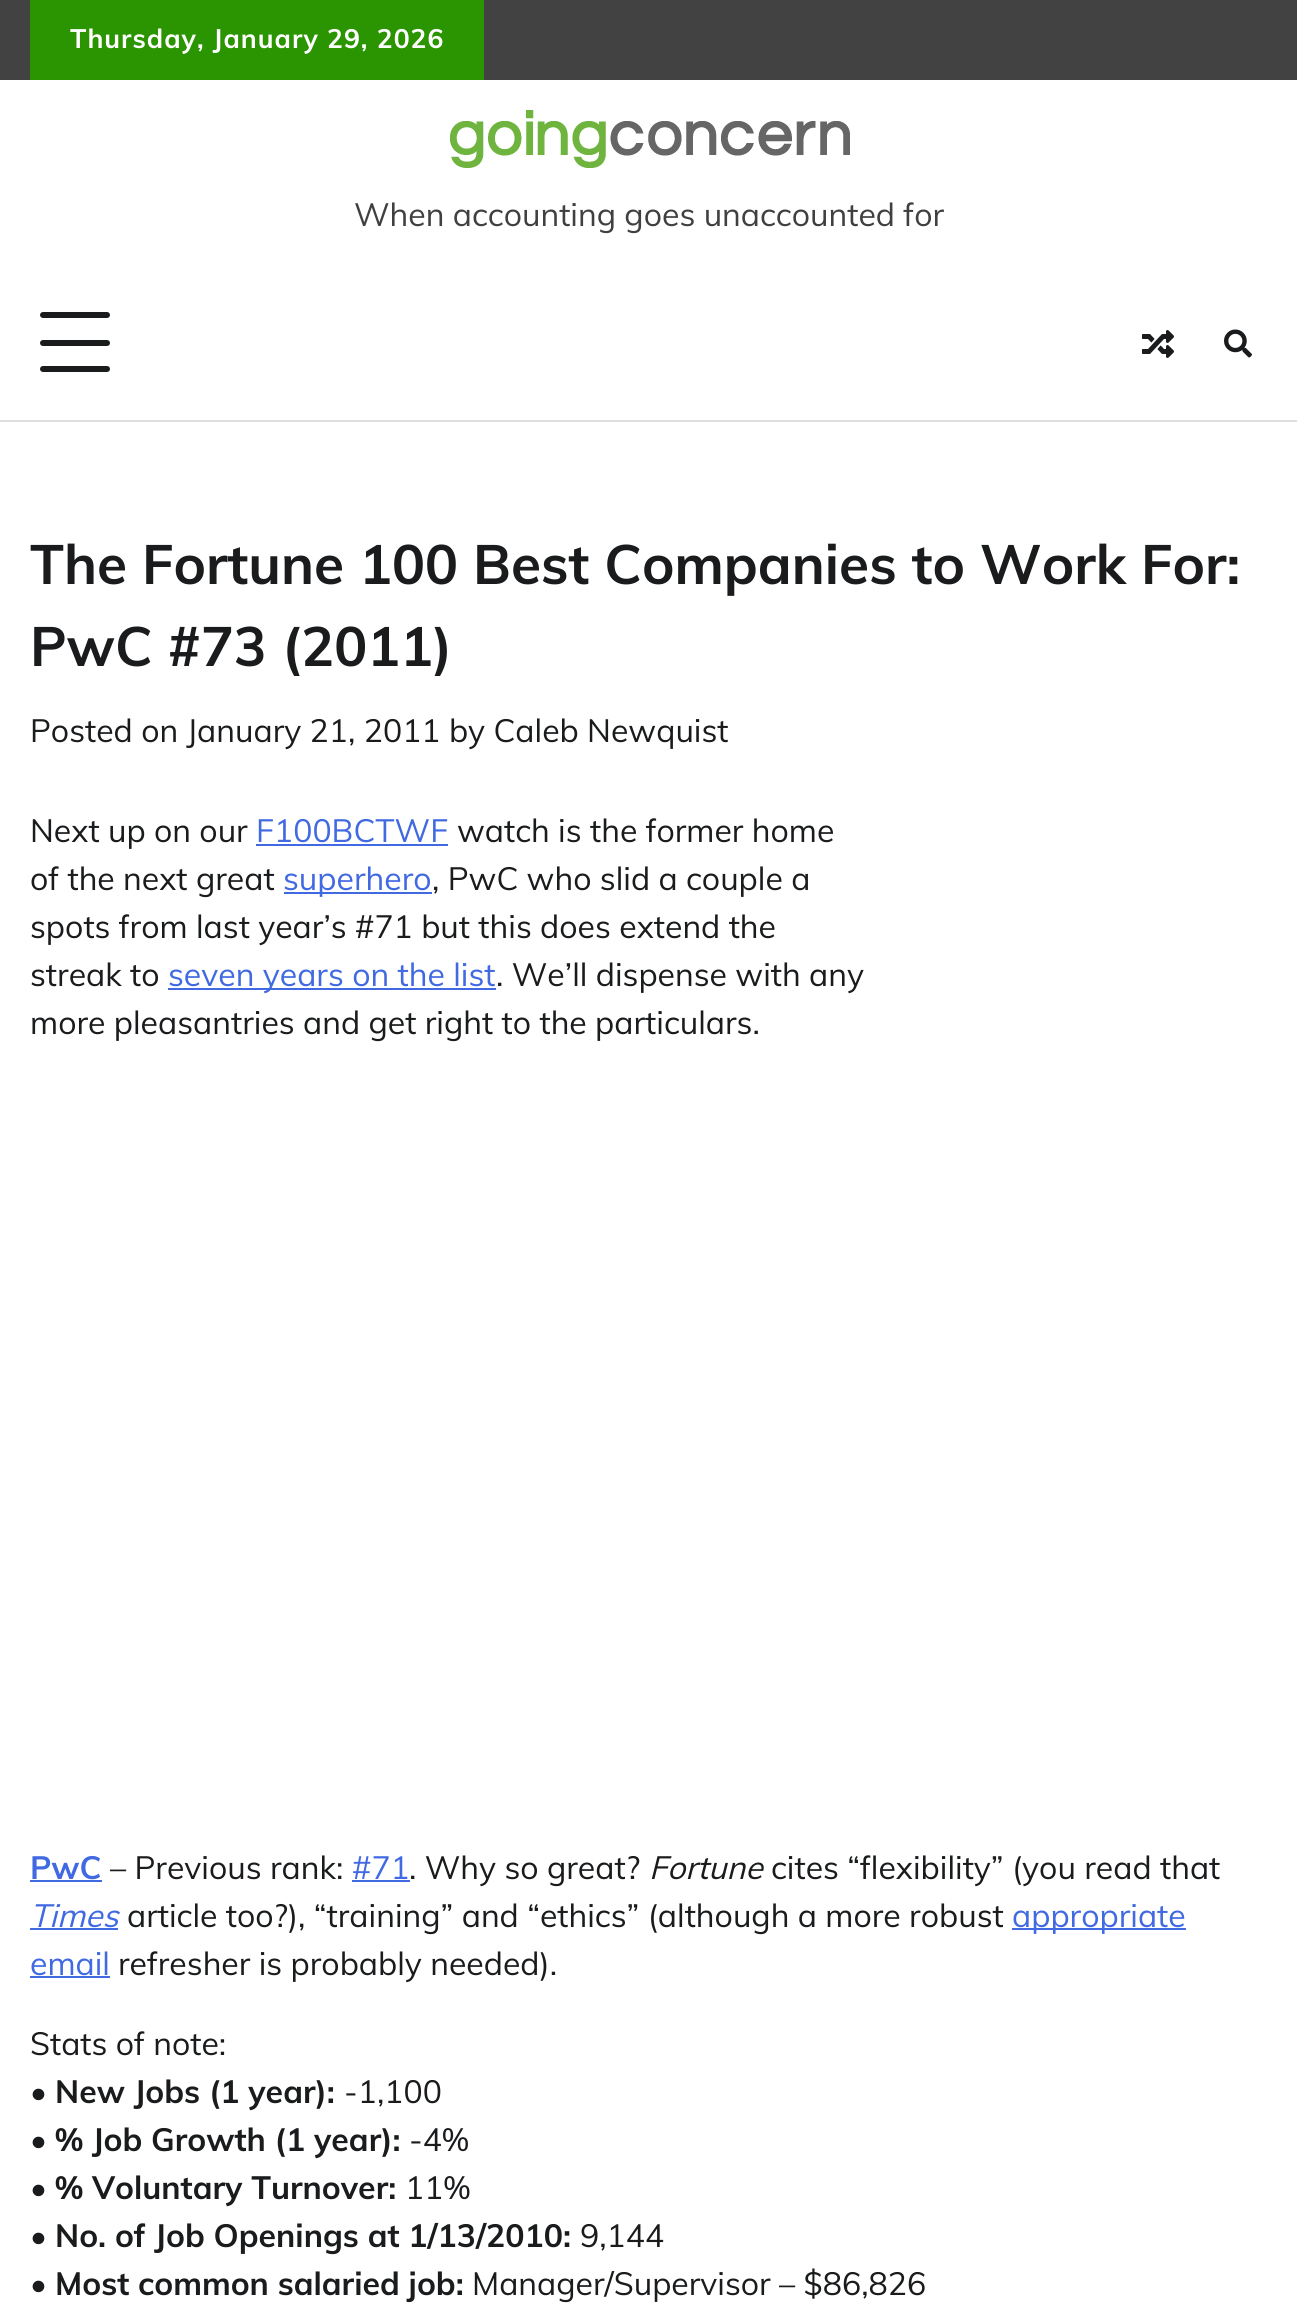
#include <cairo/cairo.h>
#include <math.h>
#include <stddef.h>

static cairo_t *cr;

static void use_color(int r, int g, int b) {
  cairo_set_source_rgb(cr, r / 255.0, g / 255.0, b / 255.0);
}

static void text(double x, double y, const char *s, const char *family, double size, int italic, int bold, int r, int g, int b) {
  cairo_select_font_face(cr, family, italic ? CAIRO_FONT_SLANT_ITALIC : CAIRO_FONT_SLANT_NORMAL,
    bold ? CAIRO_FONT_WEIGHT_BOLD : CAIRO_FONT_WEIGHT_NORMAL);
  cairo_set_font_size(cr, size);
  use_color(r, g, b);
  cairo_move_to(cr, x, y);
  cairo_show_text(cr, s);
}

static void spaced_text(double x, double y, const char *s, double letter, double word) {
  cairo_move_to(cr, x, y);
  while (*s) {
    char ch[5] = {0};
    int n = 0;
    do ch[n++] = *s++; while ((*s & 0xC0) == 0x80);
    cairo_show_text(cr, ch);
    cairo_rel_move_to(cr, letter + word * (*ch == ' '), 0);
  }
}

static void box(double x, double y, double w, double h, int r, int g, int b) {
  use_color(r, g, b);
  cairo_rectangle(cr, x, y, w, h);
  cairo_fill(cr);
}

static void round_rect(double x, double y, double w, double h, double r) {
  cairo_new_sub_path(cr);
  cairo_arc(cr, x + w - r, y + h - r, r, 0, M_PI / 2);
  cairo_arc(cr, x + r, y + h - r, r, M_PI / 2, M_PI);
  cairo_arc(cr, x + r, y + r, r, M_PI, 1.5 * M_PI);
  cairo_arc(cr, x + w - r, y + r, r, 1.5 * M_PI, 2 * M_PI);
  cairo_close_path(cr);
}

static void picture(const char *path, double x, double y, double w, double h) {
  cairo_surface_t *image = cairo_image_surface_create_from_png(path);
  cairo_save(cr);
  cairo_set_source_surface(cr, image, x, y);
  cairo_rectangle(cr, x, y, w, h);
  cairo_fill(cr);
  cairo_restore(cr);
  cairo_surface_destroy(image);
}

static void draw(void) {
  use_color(255, 255, 255);
  cairo_paint(cr);
  box(0, 0, 1297, 80, 66, 66, 66);
  box(30, 0, 454, 80, 42, 148, 1);
  picture("img_01.png", 450, 110, 400, 58);
  box(0, 420, 1297, 2, 222, 222, 222);
  use_color(25, 27, 29);
  round_rect(40, 312, 70, 6, 3);
  cairo_fill(cr);
  round_rect(40, 340, 70, 6, 3);
  cairo_fill(cr);
  round_rect(40, 366, 70, 6, 3);
  cairo_fill(cr);
  picture("img_02.png", 1142, 330, 32, 28);
  picture("img_03.png", 1224, 329, 28, 29);
  box(256, 844, 192, 2, 65, 105, 225);
  box(284, 892, 148, 2, 65, 105, 225);
  box(168, 988, 328, 2, 65, 105, 225);
  box(30, 1880, 72, 2, 65, 105, 225);
  box(352, 1880, 58, 2, 65, 105, 225);
  box(30, 1928, 88, 2, 65, 105, 225);
  box(1012, 1928, 174, 2, 65, 105, 225);
  box(30, 1976, 80, 2, 65, 105, 225);
  cairo_select_font_face(cr, "Muli", CAIRO_FONT_SLANT_NORMAL, CAIRO_FONT_WEIGHT_BOLD);
  cairo_set_font_size(cr, 26.5);
  use_color(255, 255, 255);
  spaced_text(70, 48, "Thursday, January 29, 2026", 1, 0);
  text(354, 226, "When accounting goes unaccounted for", "Muli", 32, 0, 0, 64, 64, 64);
  text(30, 584, "The Fortune 100 Best Companies to Work For:", "Muli", 54.9, 0, 1, 25, 27, 29);
  text(30, 666, "PwC #73 (2011)", "Muli", 54.9, 0, 1, 25, 27, 29);
  text(30, 742, "Posted on January 21, 2011 by Caleb Newquist", "Muli", 32, 0, 0, 25, 27, 29);
  text(30, 842, "Next up on our", "Muli", 32, 0, 0, 25, 27, 29);
  text(256, 842, "F100BCTWF", "Muli", 32, 0, 0, 65, 105, 225);
  text(457, 842, "watch is the former home", "Muli", 32, 0, 0, 25, 27, 29);
  text(30, 890, "of the next great", "Muli", 32, 0, 0, 25, 27, 29);
  text(283, 890, "superhero", "Muli", 32, 0, 0, 65, 105, 225);
  text(432, 890, ", PwC who slid a couple a", "Muli", 32, 0, 0, 25, 27, 29);
  text(30, 938, "spots from last year’s #71 but this does extend the", "Muli", 32, 0, 0, 25, 27, 29);
  text(30, 986, "streak to", "Muli", 32, 0, 0, 25, 27, 29);
  text(168, 986, "seven years on the list", "Muli", 32, 0, 0, 65, 105, 225);
  text(496, 986, ". We’ll dispense with any", "Muli", 32, 0, 0, 25, 27, 29);
  text(30, 1034, "more pleasantries and get right to the particulars.", "Muli", 32, 0, 0, 25, 27, 29);
  text(30, 1879, "PwC", "Muli", 32, 0, 1, 65, 105, 225);
  text(110, 1879, "– Previous rank:", "Muli", 32, 0, 0, 25, 27, 29);
  text(352, 1879, "#71", "Muli", 32, 0, 0, 65, 105, 225);
  text(409, 1879, ". Why so great?", "Muli", 32, 0, 0, 25, 27, 29);
  text(649, 1879, "Fortune", "Muli", 32, 1, 0, 25, 27, 29);
  text(771, 1879, "cites “flexibility” (you read that", "Muli", 32, 0, 0, 25, 27, 29);
  text(30, 1927, "Times", "Muli", 32, 1, 0, 65, 105, 225);
  text(127, 1927, "article too?), “training” and “ethics” (although a more robust", "Muli", 32, 0, 0, 25, 27, 29);
  text(1012, 1927, "appropriate", "Muli", 32, 0, 0, 65, 105, 225);
  text(30, 1975, "email", "Muli", 32, 0, 0, 65, 105, 225);
  text(118, 1975, "refresher is probably needed).", "Muli", 32, 0, 0, 25, 27, 29);
  text(30, 2055, "Stats of note:", "Muli", 32, 0, 0, 25, 27, 29);
  text(30, 2103, "•", "Muli", 32, 0, 0, 25, 27, 29);
  text(55, 2103, "New Jobs (1 year):", "Muli", 32, 0, 1, 25, 27, 29);
  text(344, 2103, "-1,100", "Muli", 32, 0, 0, 25, 27, 29);
  text(30, 2151, "•", "Muli", 32, 0, 0, 25, 27, 29);
  text(55, 2151, "% Job Growth (1 year):", "Muli", 32, 0, 1, 25, 27, 29);
  text(409, 2151, "-4%", "Muli", 32, 0, 0, 25, 27, 29);
  text(30, 2199, "•", "Muli", 32, 0, 0, 25, 27, 29);
  text(55, 2199, "% Voluntary Turnover:", "Muli", 32, 0, 1, 25, 27, 29);
  text(405, 2199, "11%", "Muli", 32, 0, 0, 25, 27, 29);
  text(30, 2247, "•", "Muli", 32, 0, 0, 25, 27, 29);
  text(55, 2247, "No. of Job Openings at 1/13/2010:", "Muli", 32, 0, 1, 25, 27, 29);
  text(580, 2247, "9,144", "Muli", 32, 0, 0, 25, 27, 29);
  text(30, 2295, "•", "Muli", 32, 0, 0, 25, 27, 29);
  text(55, 2295, "Most common salaried job:", "Muli", 32, 0, 1, 25, 27, 29);
  text(472, 2295, "Manager/Supervisor – $86,826", "Muli", 32, 0, 0, 25, 27, 29);
}

int main(void) {
  cairo_surface_t *surface = cairo_image_surface_create(CAIRO_FORMAT_RGB24, 1297, 2305);
  cr = cairo_create(surface);
  cairo_font_options_t *options = cairo_font_options_create();
  cairo_font_options_set_hint_metrics(options, CAIRO_HINT_METRICS_OFF);
  cairo_font_options_set_hint_style(options, CAIRO_HINT_STYLE_NONE);
  cairo_set_font_options(cr, options);
  cairo_set_miter_limit(cr, 4);
  draw();
  cairo_surface_write_to_png(surface, "out.png");
  cairo_font_options_destroy(options);
  cairo_destroy(cr);
  cairo_surface_destroy(surface);
  return 0;
}
